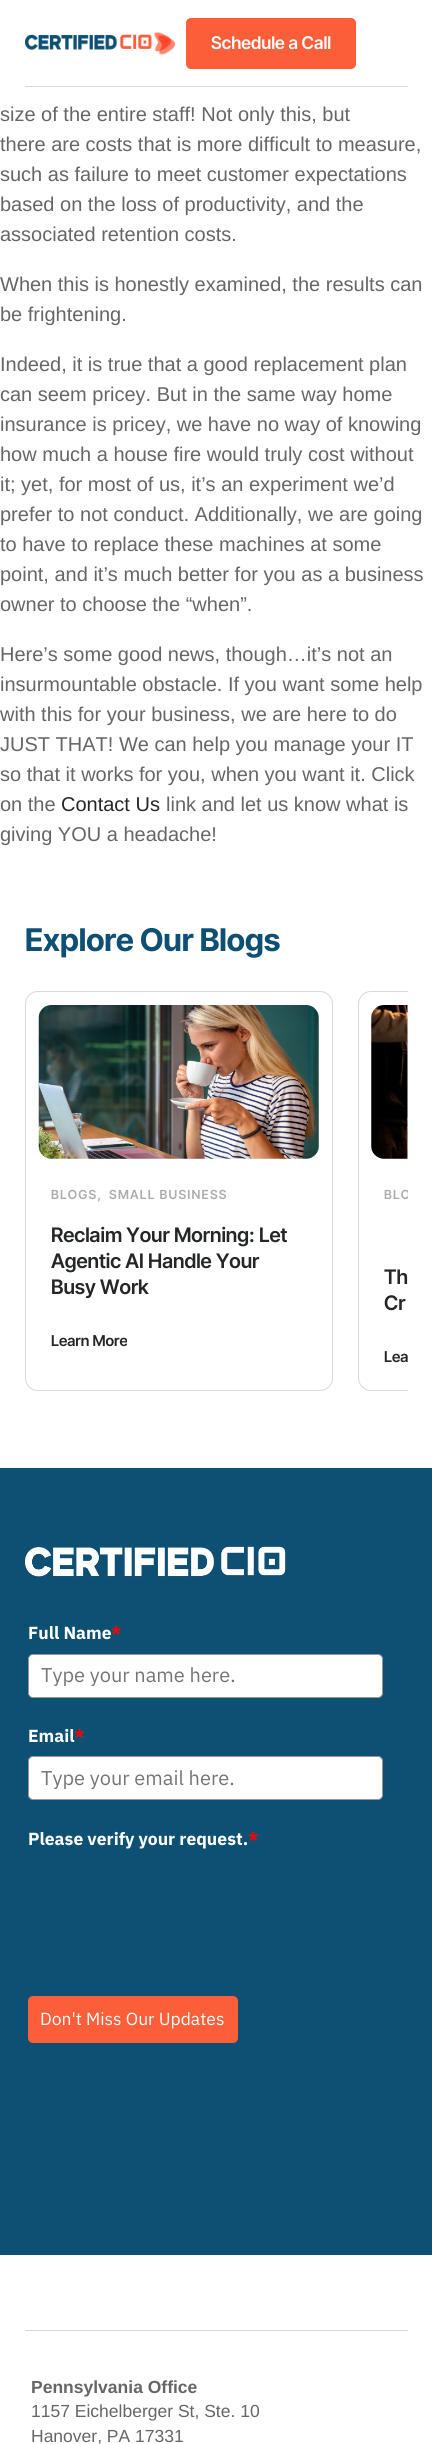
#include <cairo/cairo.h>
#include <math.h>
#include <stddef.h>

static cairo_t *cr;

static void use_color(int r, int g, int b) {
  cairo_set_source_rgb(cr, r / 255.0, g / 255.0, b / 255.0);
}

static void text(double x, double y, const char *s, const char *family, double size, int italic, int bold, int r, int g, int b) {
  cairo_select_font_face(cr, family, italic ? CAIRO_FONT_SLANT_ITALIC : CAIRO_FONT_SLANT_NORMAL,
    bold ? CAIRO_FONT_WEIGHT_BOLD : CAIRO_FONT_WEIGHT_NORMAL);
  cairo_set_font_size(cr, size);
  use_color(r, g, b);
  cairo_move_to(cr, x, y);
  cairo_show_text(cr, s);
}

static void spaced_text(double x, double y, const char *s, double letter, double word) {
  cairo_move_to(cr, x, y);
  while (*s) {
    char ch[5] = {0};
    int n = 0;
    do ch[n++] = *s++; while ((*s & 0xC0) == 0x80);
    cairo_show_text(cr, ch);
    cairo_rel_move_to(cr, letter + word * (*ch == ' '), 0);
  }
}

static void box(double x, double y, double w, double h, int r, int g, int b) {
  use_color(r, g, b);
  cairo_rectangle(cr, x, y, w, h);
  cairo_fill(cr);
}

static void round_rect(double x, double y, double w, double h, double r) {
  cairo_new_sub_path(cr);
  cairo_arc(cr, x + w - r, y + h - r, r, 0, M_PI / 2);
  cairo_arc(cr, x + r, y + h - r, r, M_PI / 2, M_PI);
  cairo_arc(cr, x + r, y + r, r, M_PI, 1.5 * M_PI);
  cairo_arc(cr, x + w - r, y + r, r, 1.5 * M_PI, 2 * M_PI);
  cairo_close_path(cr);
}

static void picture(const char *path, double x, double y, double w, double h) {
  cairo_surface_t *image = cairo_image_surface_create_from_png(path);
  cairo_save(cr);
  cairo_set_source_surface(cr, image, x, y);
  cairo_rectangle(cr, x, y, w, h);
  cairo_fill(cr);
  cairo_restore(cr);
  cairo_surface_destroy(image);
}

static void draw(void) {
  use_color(255, 255, 255);
  cairo_paint(cr);
  box(25, 86, 383, 1, 217, 217, 217);
  picture("img_01.png", 25, 32, 150, 23);
  use_color(252, 94, 58);
  round_rect(186, 18, 170, 51, 5);
  cairo_fill(cr);
  round_rect(25.5, 991.5, 307, 399, 12.5);
  use_color(217, 217, 217);
  cairo_set_line_width(cr, 1);
  cairo_stroke(cr);
  picture("img_02.png", 38, 1005, 281, 154);
  cairo_save(cr);
  cairo_rectangle(cr, 25, 991, 383, 425);
  cairo_clip(cr);
  round_rect(358.5, 991.5, 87, 399, 12.5);
  cairo_stroke(cr);
  cairo_restore(cr);
  picture("img_03.png", 371, 1005, 37, 154);
  box(0, 1468, 432, 787, 13, 80, 116);
  picture("img_04.png", 25, 1546, 261, 31);
  use_color(255, 255, 255);
  round_rect(28.5, 1654.5, 354, 43, 4.5);
  cairo_fill_preserve(cr);
  use_color(151, 151, 151);
  cairo_stroke(cr);
  use_color(255, 255, 255);
  round_rect(28.5, 1756.5, 354, 43, 4.5);
  cairo_fill_preserve(cr);
  use_color(151, 151, 151);
  cairo_stroke(cr);
  use_color(252, 94, 58);
  round_rect(28, 1996, 210, 47, 5);
  cairo_fill(cr);
  box(25, 2330, 383, 1, 217, 217, 217);
  text(211, 49, "Schedule a Call", "Inter Tight SemiBold", 17.5, 0, 0, 255, 255, 255);
  text(0, 121, "size of the entire staff! Not only this, but", "Liberation Sans", 20, 0, 0, 102, 102, 102);
  text(0, 151, "there are costs that is more difficult to measure,", "Liberation Sans", 20, 0, 0, 102, 102, 102);
  text(0, 181, "such as failure to meet customer expectations", "Liberation Sans", 20, 0, 0, 102, 102, 102);
  text(0, 211, "based on the loss of productivity, and the", "Liberation Sans", 20, 0, 0, 102, 102, 102);
  text(0, 241, "associated retention costs.", "Liberation Sans", 20, 0, 0, 102, 102, 102);
  text(0, 291, "When this is honestly examined, the results can", "Liberation Sans", 20, 0, 0, 102, 102, 102);
  text(0, 321, "be frightening.", "Liberation Sans", 20, 0, 0, 102, 102, 102);
  text(0, 371, "Indeed, it is true that a good replacement plan", "Liberation Sans", 20, 0, 0, 102, 102, 102);
  text(0, 401, "can seem pricey. But in the same way home", "Liberation Sans", 20, 0, 0, 102, 102, 102);
  text(0, 431, "insurance is pricey, we have no way of knowing", "Liberation Sans", 20, 0, 0, 102, 102, 102);
  text(0, 461, "how much a house fire would truly cost without", "Liberation Sans", 20, 0, 0, 102, 102, 102);
  text(0, 491, "it; yet, for most of us, it’s an experiment we’d", "Liberation Sans", 20, 0, 0, 102, 102, 102);
  text(0, 521, "prefer to not conduct. Additionally, we are going", "Liberation Sans", 20, 0, 0, 102, 102, 102);
  text(0, 551, "to have to replace these machines at some", "Liberation Sans", 20, 0, 0, 102, 102, 102);
  text(0, 581, "point, and it’s much better for you as a business", "Liberation Sans", 20, 0, 0, 102, 102, 102);
  text(0, 611, "owner to choose the “when”.", "Liberation Sans", 20, 0, 0, 102, 102, 102);
  text(0, 661, "Here’s some good news, though…it’s not an", "Liberation Sans", 20, 0, 0, 102, 102, 102);
  text(0, 691, "insurmountable obstacle. If you want some help", "Liberation Sans", 20, 0, 0, 102, 102, 102);
  text(0, 721, "with this for your business, we are here to do", "Liberation Sans", 20, 0, 0, 102, 102, 102);
  text(0, 751, "JUST THAT! We can help you manage your IT", "Liberation Sans", 20, 0, 0, 102, 102, 102);
  text(0, 781, "so that it works for you, when you want it. Click", "Liberation Sans", 20, 0, 0, 102, 102, 102);
  text(0, 811, "on the", "Liberation Sans", 20, 0, 0, 102, 102, 102);
  text(61, 811, "Contact Us", "Liberation Sans", 20, 0, 0, 36, 38, 39);
  text(166, 811, "link and let us know what is", "Liberation Sans", 20, 0, 0, 102, 102, 102);
  text(0, 841, "giving YOU a headache!", "Liberation Sans", 20, 0, 0, 102, 102, 102);
  text(25, 951, "Explore Our Blogs", "Inter Tight", 31.25, 0, 1, 13, 80, 116);
  cairo_select_font_face(cr, "Inter Tight SemiBold", CAIRO_FONT_SLANT_NORMAL, CAIRO_FONT_WEIGHT_NORMAL);
  cairo_set_font_size(cr, 12.5);
  use_color(173, 173, 173);
  spaced_text(51, 1199, "BLOGS,", 1.25, 0);
  spaced_text(109, 1199, "SMALL BUSINESS", 1.25, 0);
  text(51, 1242, "Reclaim Your Morning: Let", "Inter Tight SemiBold", 20, 0, 0, 36, 38, 39);
  text(51, 1268, "Agentic AI Handle Your", "Inter Tight SemiBold", 20, 0, 0, 36, 38, 39);
  text(51, 1294, "Busy Work", "Inter Tight SemiBold", 20, 0, 0, 36, 38, 39);
  text(51, 1346, "Learn More", "Inter Tight SemiBold", 15, 0, 0, 36, 38, 39);
  cairo_save(cr);
  cairo_rectangle(cr, 25, 991, 383, 425);
  cairo_clip(cr);
  cairo_set_font_size(cr, 12.5);
  use_color(173, 173, 173);
  spaced_text(384, 1199, "BLO", 1.25, 0);
  cairo_restore(cr);
  text(384, 1284, "Th", "Inter Tight SemiBold", 20, 0, 0, 36, 38, 39);
  text(384, 1310, "Cr", "Inter Tight SemiBold", 20, 0, 0, 36, 38, 39);
  text(384, 1362, "Lea", "Inter Tight SemiBold", 15, 0, 0, 36, 38, 39);
  text(28, 1639, "Full Name", "IBM Plex Sans", 17.5, 0, 1, 255, 255, 255);
  text(111, 1639, "*", "IBM Plex Sans", 17.5, 0, 1, 255, 0, 0);
  text(41, 1682, "Type your name here.", "IBM Plex Sans", 20, 0, 0, 117, 117, 117);
  text(28, 1742, "Email", "IBM Plex Sans", 17.5, 0, 1, 255, 255, 255);
  text(74, 1742, "*", "IBM Plex Sans", 17.5, 0, 1, 255, 0, 0);
  text(41, 1785, "Type your email here.", "IBM Plex Sans", 20, 0, 0, 117, 117, 117);
  text(28, 1845, "Please verify your request.", "IBM Plex Sans", 17.5, 0, 1, 255, 255, 255);
  text(248, 1845, "*", "IBM Plex Sans", 17.5, 0, 1, 255, 0, 0);
  text(40, 2025, "Don't Miss Our Updates", "IBM Plex Sans", 17.5, 0, 0, 255, 255, 255);
  text(31, 2393, "Pennsylvania Office", "Liberation Sans", 17.5, 0, 1, 102, 102, 102);
  text(31, 2417, "1157 Eichelberger St, Ste. 10", "Liberation Sans", 17.5, 0, 0, 102, 102, 102);
  text(31, 2442, "Hanover, PA 17331", "Liberation Sans", 17.5, 0, 0, 102, 102, 102);
}

int main(void) {
  cairo_surface_t *surface = cairo_image_surface_create(CAIRO_FORMAT_RGB24, 432, 2444);
  cr = cairo_create(surface);
  cairo_font_options_t *options = cairo_font_options_create();
  cairo_font_options_set_hint_metrics(options, CAIRO_HINT_METRICS_OFF);
  cairo_font_options_set_hint_style(options, CAIRO_HINT_STYLE_NONE);
  cairo_set_font_options(cr, options);
  cairo_set_miter_limit(cr, 4);
  draw();
  cairo_surface_write_to_png(surface, "out.png");
  cairo_font_options_destroy(options);
  cairo_destroy(cr);
  cairo_surface_destroy(surface);
  return 0;
}
